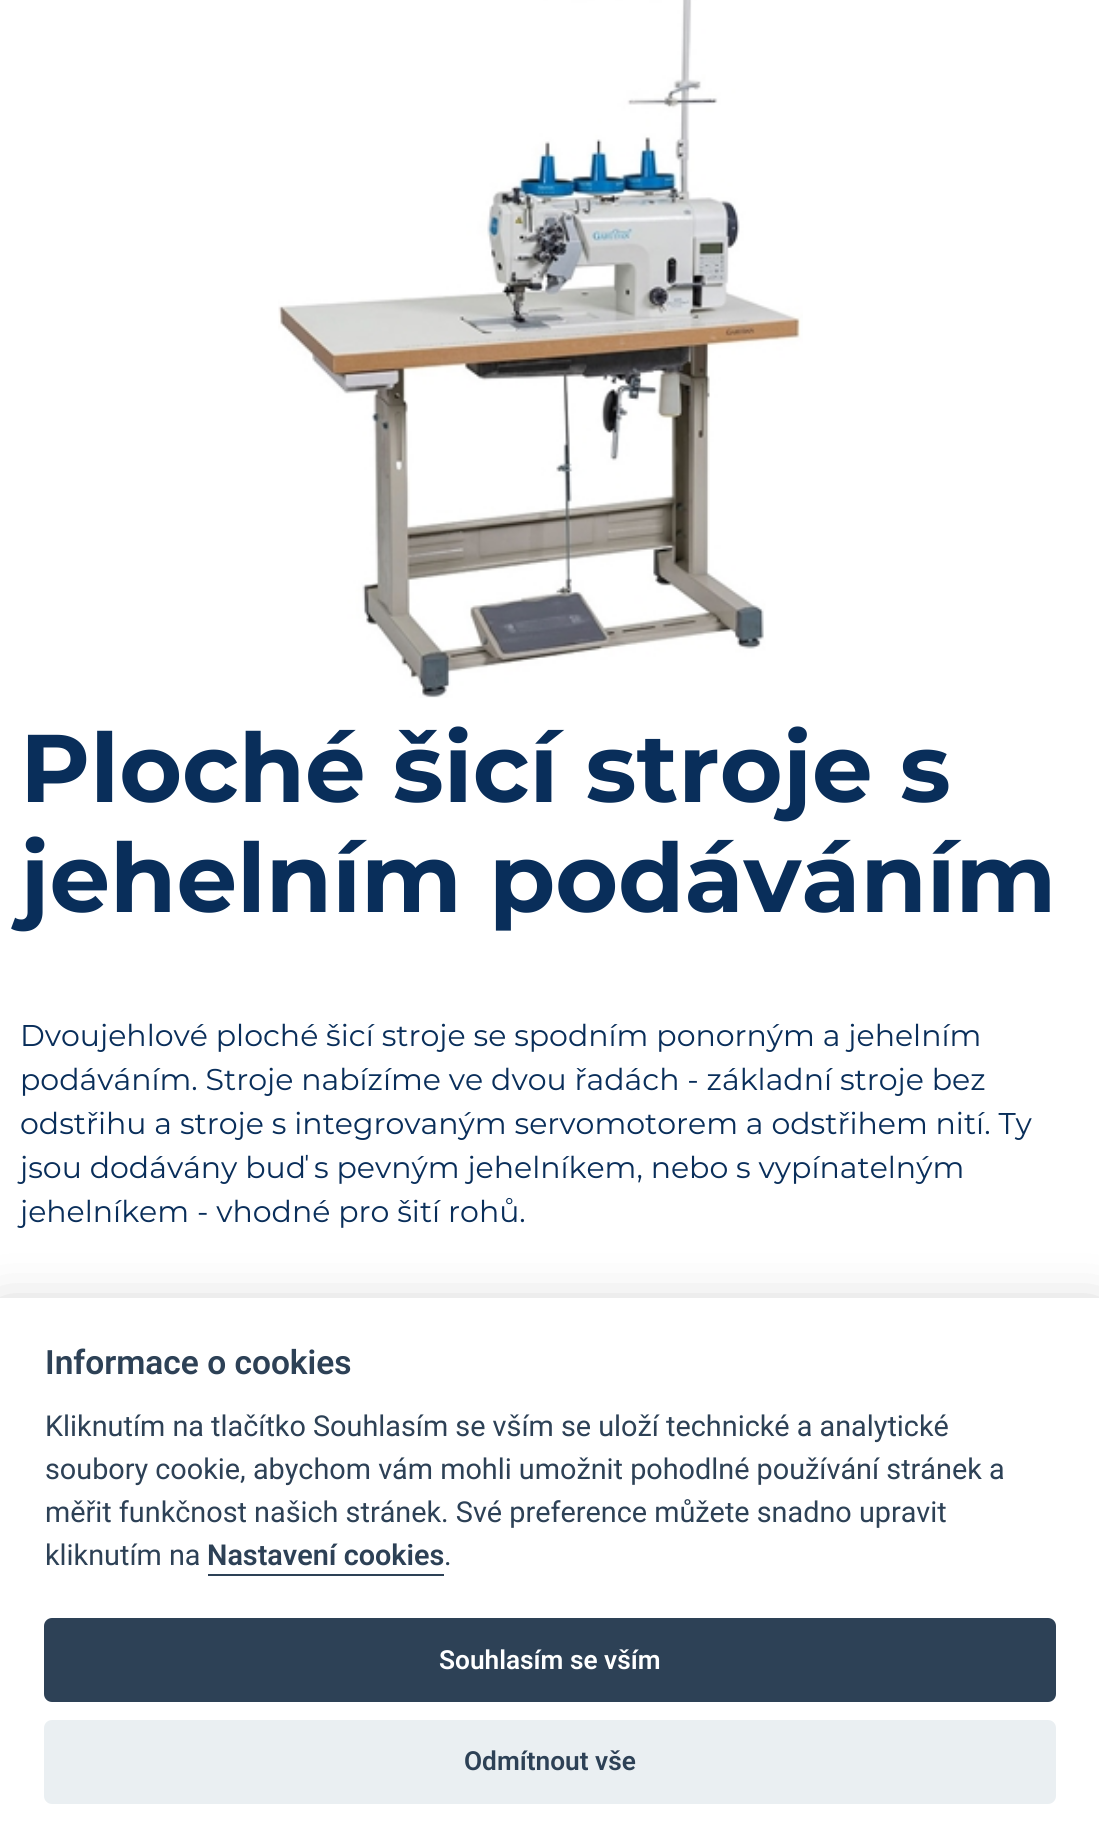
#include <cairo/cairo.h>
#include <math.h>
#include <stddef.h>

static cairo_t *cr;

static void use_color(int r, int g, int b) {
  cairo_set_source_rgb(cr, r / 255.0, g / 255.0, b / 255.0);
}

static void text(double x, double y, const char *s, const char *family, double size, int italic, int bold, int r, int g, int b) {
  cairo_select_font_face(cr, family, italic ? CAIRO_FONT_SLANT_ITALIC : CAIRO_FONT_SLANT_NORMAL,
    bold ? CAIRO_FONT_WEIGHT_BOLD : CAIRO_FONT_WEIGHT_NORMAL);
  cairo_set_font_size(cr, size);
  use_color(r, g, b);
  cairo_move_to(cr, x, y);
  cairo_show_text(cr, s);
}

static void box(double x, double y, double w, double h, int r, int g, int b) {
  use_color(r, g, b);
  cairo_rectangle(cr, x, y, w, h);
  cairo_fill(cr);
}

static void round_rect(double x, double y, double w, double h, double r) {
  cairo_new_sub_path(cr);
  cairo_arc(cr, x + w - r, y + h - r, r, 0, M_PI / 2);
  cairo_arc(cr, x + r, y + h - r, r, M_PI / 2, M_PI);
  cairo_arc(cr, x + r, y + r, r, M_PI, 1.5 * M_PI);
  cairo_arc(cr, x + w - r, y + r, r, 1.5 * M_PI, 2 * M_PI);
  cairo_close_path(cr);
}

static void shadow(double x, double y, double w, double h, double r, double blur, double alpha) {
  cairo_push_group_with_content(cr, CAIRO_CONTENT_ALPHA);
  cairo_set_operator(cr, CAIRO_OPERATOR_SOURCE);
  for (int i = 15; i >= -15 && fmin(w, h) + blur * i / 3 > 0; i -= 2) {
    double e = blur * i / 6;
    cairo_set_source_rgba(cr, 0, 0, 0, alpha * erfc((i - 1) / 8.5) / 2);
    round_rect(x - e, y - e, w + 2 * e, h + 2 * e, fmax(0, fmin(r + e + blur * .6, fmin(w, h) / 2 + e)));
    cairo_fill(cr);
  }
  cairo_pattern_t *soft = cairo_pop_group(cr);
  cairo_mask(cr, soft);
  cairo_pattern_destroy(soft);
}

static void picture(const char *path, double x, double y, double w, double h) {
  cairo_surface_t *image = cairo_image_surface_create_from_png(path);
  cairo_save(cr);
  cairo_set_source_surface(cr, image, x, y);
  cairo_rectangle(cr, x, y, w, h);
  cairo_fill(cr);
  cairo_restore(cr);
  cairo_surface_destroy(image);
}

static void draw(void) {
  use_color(255, 255, 255);
  cairo_paint(cr);
  picture("img_01.png", 278, 0, 525, 698);
  use_color(2, 2, 3);
  shadow(0, 1318, 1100, 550, 0, 30, 0.28);
  box(0, 1298, 1099, 550, 255, 255, 255);
  box(208, 1574, 236, 2, 45, 65, 86);
  round_rect(44, 1618, 1012, 84, 8);
  cairo_fill(cr);
  use_color(234, 239, 242);
  round_rect(44, 1720, 1012, 84, 8);
  cairo_fill(cr);
  text(20, 802, "Ploché šicí stroje s", "Montserrat", 96, 0, 1, 9, 46, 90);
  text(20, 912, "jehelním podáváním", "Montserrat", 96, 0, 1, 9, 46, 90);
  text(20, 1046, "Dvoujehlové ploché šicí stroje se spodním ponorným a jehelním", "Montserrat", 30, 0, 0, 9, 46, 90);
  text(20, 1090, "podáváním. Stroje nabízíme ve dvou řadách - základní stroje bez", "Montserrat", 30, 0, 0, 9, 46, 90);
  text(20, 1134, "odstřihu a stroje s integrovaným servomotorem a odstřihem nití. Ty", "Montserrat", 30, 0, 0, 9, 46, 90);
  text(20, 1178, "jsou dodávány buď s pevným jehelníkem, nebo s vypínatelným", "Montserrat", 30, 0, 0, 9, 46, 90);
  text(20, 1222, "jehelníkem - vhodné pro šití rohů.", "Montserrat", 30, 0, 0, 9, 46, 90);
  text(45, 1374, "Informace o cookies", "Roboto SemiBold", 33.5, 0, 0, 45, 65, 86);
  text(45, 1436, "Kliknutím na tlačítko Souhlasím se vším se uloží technické a analytické", "Roboto", 28.8, 0, 0, 45, 65, 86);
  text(45, 1479, "soubory cookie, abychom vám mohli umožnit pohodlné používání stránek a", "Roboto", 28.8, 0, 0, 45, 65, 86);
  text(45, 1522, "měřit funkčnost našich stránek. Své preference můžete snadno upravit", "Roboto", 28.8, 0, 0, 45, 65, 86);
  text(45, 1565, "kliknutím na", "Roboto", 28.8, 0, 0, 45, 65, 86);
  text(207, 1565, "Nastavení cookies", "Roboto SemiBold", 28.8, 0, 0, 45, 65, 86);
  text(444, 1565, ".", "Roboto", 28.8, 0, 0, 45, 65, 86);
  text(439, 1669, "Souhlasím se vším", "Roboto SemiBold", 26.25, 0, 0, 255, 255, 255);
  text(464, 1770, "Odmítnout vše", "Roboto SemiBold", 26.25, 0, 0, 45, 65, 86);
}

int main(void) {
  cairo_surface_t *surface = cairo_image_surface_create(CAIRO_FORMAT_RGB24, 1099, 1848);
  cr = cairo_create(surface);
  cairo_font_options_t *options = cairo_font_options_create();
  cairo_font_options_set_hint_metrics(options, CAIRO_HINT_METRICS_OFF);
  cairo_font_options_set_hint_style(options, CAIRO_HINT_STYLE_NONE);
  cairo_set_font_options(cr, options);
  cairo_set_miter_limit(cr, 4);
  draw();
  cairo_surface_write_to_png(surface, "out.png");
  cairo_font_options_destroy(options);
  cairo_destroy(cr);
  cairo_surface_destroy(surface);
  return 0;
}
